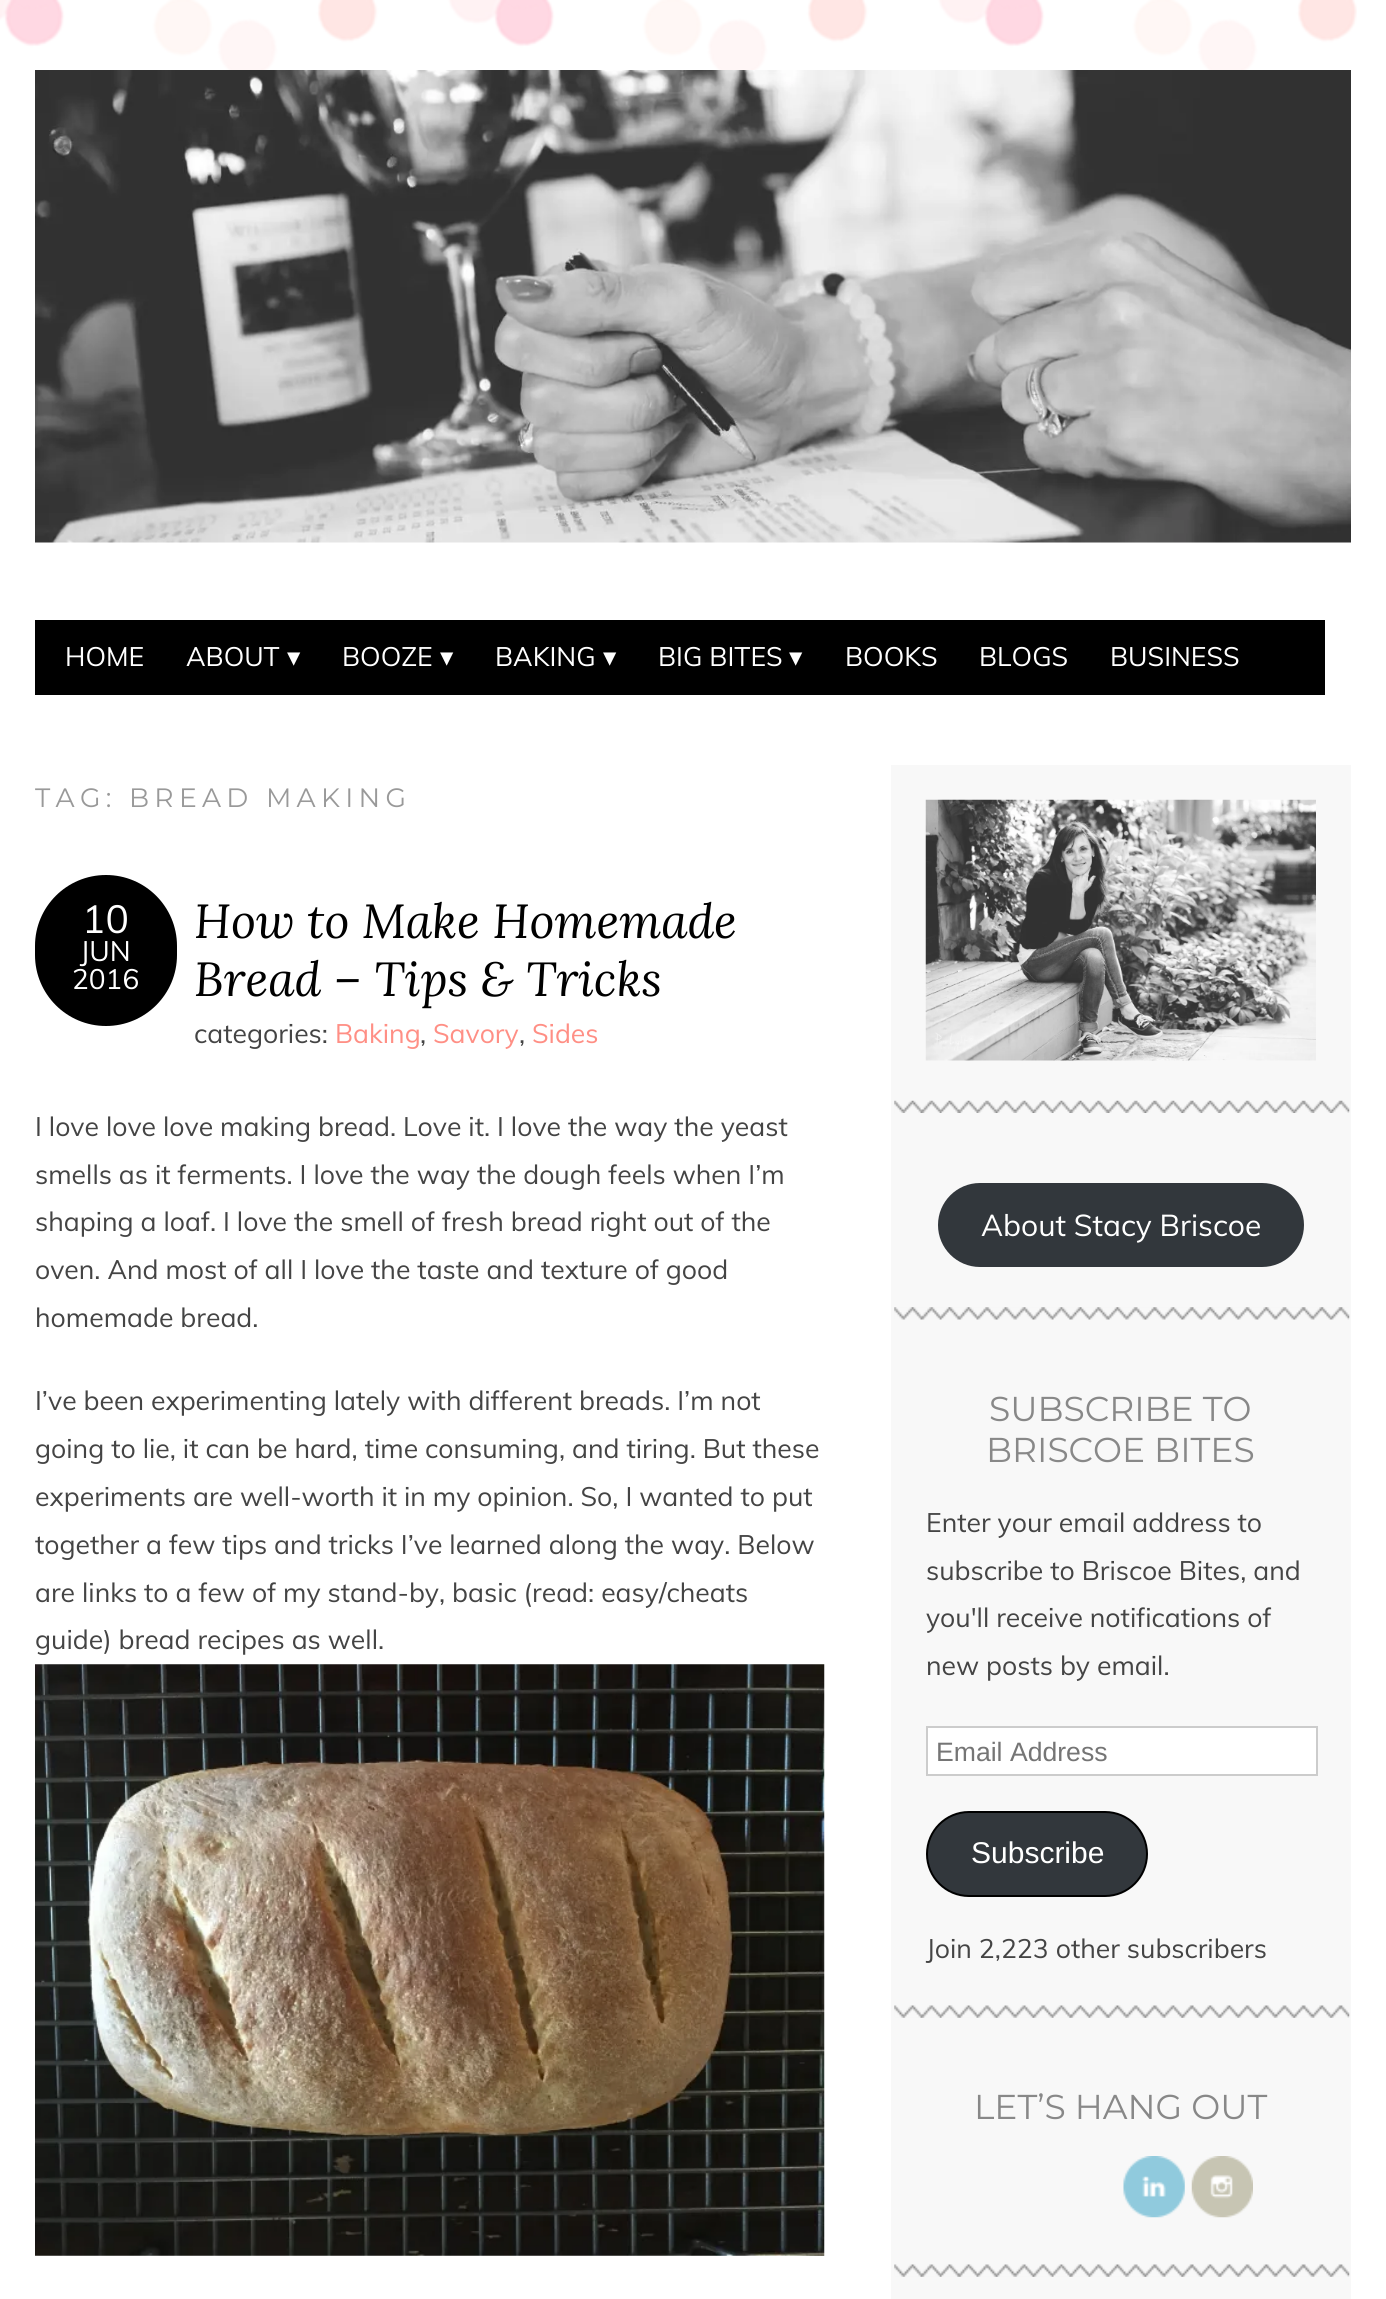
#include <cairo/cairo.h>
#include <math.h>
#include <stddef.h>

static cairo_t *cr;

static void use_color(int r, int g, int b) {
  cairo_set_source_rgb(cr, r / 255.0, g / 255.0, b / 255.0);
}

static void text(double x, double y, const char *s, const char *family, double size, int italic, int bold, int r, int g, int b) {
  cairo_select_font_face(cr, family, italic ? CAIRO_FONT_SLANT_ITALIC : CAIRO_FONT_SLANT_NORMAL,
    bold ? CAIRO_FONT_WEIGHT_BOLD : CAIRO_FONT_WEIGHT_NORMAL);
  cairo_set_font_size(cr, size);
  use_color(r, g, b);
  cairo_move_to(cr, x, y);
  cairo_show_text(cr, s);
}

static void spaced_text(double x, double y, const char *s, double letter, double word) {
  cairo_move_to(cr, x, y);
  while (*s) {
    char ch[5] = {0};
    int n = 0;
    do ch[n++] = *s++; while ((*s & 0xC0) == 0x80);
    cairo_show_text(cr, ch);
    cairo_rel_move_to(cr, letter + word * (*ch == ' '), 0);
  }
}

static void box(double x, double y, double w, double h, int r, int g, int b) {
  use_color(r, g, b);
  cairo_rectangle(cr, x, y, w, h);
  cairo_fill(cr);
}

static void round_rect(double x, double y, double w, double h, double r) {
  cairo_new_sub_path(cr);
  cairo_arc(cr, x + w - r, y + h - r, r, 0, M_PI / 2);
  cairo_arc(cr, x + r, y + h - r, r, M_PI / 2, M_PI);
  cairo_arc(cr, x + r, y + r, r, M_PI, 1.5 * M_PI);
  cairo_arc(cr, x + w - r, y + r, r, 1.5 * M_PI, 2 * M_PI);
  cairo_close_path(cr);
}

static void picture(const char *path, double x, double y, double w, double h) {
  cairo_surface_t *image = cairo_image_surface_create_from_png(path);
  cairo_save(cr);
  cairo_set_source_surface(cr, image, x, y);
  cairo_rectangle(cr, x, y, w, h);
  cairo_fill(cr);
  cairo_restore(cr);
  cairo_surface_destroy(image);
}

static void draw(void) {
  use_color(255, 255, 255);
  cairo_paint(cr);
  picture("img_01.png", 0, 0, 1357, 77);
  picture("img_02.png", 35, 70, 1316, 473);
  box(35, 620, 1290, 75, 0, 0, 0);
  round_rect(35, 875, 142, 151, 71);
  cairo_fill(cr);
  picture("img_03.png", 35, 1664, 790, 592);
  box(891, 765, 460, 1534, 248, 248, 248);
  picture("img_04.png", 894, 1100, 456, 13);
  picture("img_05.png", 925, 799, 391, 262);
  picture("img_06.png", 894, 1307, 456, 13);
  use_color(50, 55, 60);
  round_rect(938, 1183, 366, 84, 42);
  cairo_fill(cr);
  picture("img_07.png", 894, 2005, 456, 13);
  use_color(255, 255, 255);
  cairo_rectangle(cr, 927, 1727, 390, 48);
  cairo_fill_preserve(cr);
  use_color(204, 204, 204);
  cairo_stroke(cr);
  use_color(50, 55, 60);
  round_rect(927, 1812, 220, 84, 42);
  cairo_fill_preserve(cr);
  use_color(0, 0, 0);
  cairo_stroke(cr);
  picture("img_07.png", 894, 2264, 456, 13);
  picture("img_08.png", 1123, 2156, 62, 62);
  picture("img_09.png", 1191, 2156, 62, 62);
  text(65, 666, "HOME", "Muli", 26.6, 0, 0, 255, 255, 255);
  text(186, 666, "ABOUT", "Muli", 26.6, 0, 0, 255, 255, 255);
  text(287, 666, "▾", "DejaVu Sans", 26.6, 0, 0, 255, 255, 255);
  text(342, 666, "BOOZE", "Muli", 26.6, 0, 0, 255, 255, 255);
  text(440, 666, "▾", "DejaVu Sans", 26.6, 0, 0, 255, 255, 255);
  text(495, 666, "BAKING", "Muli", 26.6, 0, 0, 255, 255, 255);
  text(603, 666, "▾", "DejaVu Sans", 26.6, 0, 0, 255, 255, 255);
  text(658, 666, "BIG BITES", "Muli", 26.6, 0, 0, 255, 255, 255);
  text(789, 666, "▾", "DejaVu Sans", 26.6, 0, 0, 255, 255, 255);
  text(845, 666, "BOOKS", "Muli", 26.6, 0, 0, 255, 255, 255);
  text(979, 666, "BLOGS", "Muli", 26.6, 0, 0, 255, 255, 255);
  text(1110, 666, "BUSINESS", "Muli", 26.6, 0, 0, 255, 255, 255);
  cairo_select_font_face(cr, "Montserrat", CAIRO_FONT_SLANT_NORMAL, CAIRO_FONT_WEIGHT_NORMAL);
  use_color(153, 153, 153);
  spaced_text(35, 807, "TAG: BREAD MAKING", 5.3, 0);
  text(82, 933, "10", "Muli", 39, 0, 0, 255, 255, 255);
  text(80, 961, "JUN", "Muli", 28, 0, 0, 255, 255, 255);
  text(72, 989, "2016", "Muli", 28, 0, 0, 255, 255, 255);
  text(194, 938, "How to Make Homemade", "Lora", 47.9, 1, 0, 0, 0, 0);
  text(194, 996, "Bread – Tips & Tricks", "Lora", 47.9, 1, 0, 0, 0, 0);
  text(194, 1043, "categories:", "Muli", 26.6, 0, 0, 68, 68, 68);
  text(335, 1043, "Baking", "Muli", 26.6, 0, 0, 255, 143, 133);
  text(420, 1043, ",", "Muli", 26.6, 0, 0, 68, 68, 68);
  text(433, 1043, "Savory", "Muli", 26.6, 0, 0, 255, 143, 133);
  text(519, 1043, ",", "Muli", 26.6, 0, 0, 68, 68, 68);
  text(532, 1043, "Sides", "Muli", 26.6, 0, 0, 255, 143, 133);
  text(35, 1136, "I love love love making bread. Love it. I love the way the yeast", "Muli", 26.6, 0, 0, 68, 68, 68);
  text(35, 1184, "smells as it ferments. I love the way the dough feels when I’m", "Muli", 26.6, 0, 0, 68, 68, 68);
  text(35, 1231, "shaping a loaf. I love the smell of fresh bread right out of the", "Muli", 26.6, 0, 0, 68, 68, 68);
  text(35, 1279, "oven. And most of all I love the taste and texture of good", "Muli", 26.6, 0, 0, 68, 68, 68);
  text(35, 1327, "homemade bread.", "Muli", 26.6, 0, 0, 68, 68, 68);
  text(35, 1410, "I’ve been experimenting lately with different breads. I’m not", "Muli", 26.6, 0, 0, 68, 68, 68);
  text(35, 1458, "going to lie, it can be hard, time consuming, and tiring. But these", "Muli", 26.6, 0, 0, 68, 68, 68);
  text(35, 1506, "experiments are well-worth it in my opinion. So, I wanted to put", "Muli", 26.6, 0, 0, 68, 68, 68);
  text(35, 1554, "together a few tips and tricks I’ve learned along the way. Below", "Muli", 26.6, 0, 0, 68, 68, 68);
  text(35, 1602, "are links to a few of my stand-by, basic (read: easy/cheats", "Muli", 26.6, 0, 0, 68, 68, 68);
  text(35, 1649, "guide) bread recipes as well.", "Muli", 26.6, 0, 0, 68, 68, 68);
  text(981, 1236, "About Stacy Briscoe", "Muli", 30, 0, 0, 255, 255, 255);
  text(989, 1421, "SUBSCRIBE TO", "Montserrat", 34.5, 0, 0, 136, 136, 136);
  text(986, 1462, "BRISCOE BITES", "Montserrat", 34.5, 0, 0, 136, 136, 136);
  text(926, 1532, "Enter your email address to", "Muli", 26.6, 0, 0, 68, 68, 68);
  text(926, 1580, "subscribe to Briscoe Bites, and", "Muli", 26.6, 0, 0, 68, 68, 68);
  text(926, 1627, "you'll receive notifications of", "Muli", 26.6, 0, 0, 68, 68, 68);
  text(926, 1675, "new posts by email.", "Muli", 26.6, 0, 0, 68, 68, 68);
  text(936, 1761, "Email Address", "Liberation Sans", 26.6, 0, 0, 117, 117, 117);
  text(971, 1863, "Subscribe", "Liberation Sans", 30, 0, 0, 255, 255, 255);
  text(926, 1958, "Join 2,223 other subscribers", "Muli", 26.6, 0, 0, 68, 68, 68);
  text(974, 2119, "LET’S HANG OUT", "Montserrat", 34.5, 0, 0, 136, 136, 136);
}

int main(void) {
  cairo_surface_t *surface = cairo_image_surface_create(CAIRO_FORMAT_RGB24, 1386, 2299);
  cr = cairo_create(surface);
  cairo_font_options_t *options = cairo_font_options_create();
  cairo_font_options_set_hint_metrics(options, CAIRO_HINT_METRICS_OFF);
  cairo_font_options_set_hint_style(options, CAIRO_HINT_STYLE_NONE);
  cairo_set_font_options(cr, options);
  cairo_set_miter_limit(cr, 4);
  draw();
  cairo_surface_write_to_png(surface, "out.png");
  cairo_font_options_destroy(options);
  cairo_destroy(cr);
  cairo_surface_destroy(surface);
  return 0;
}
